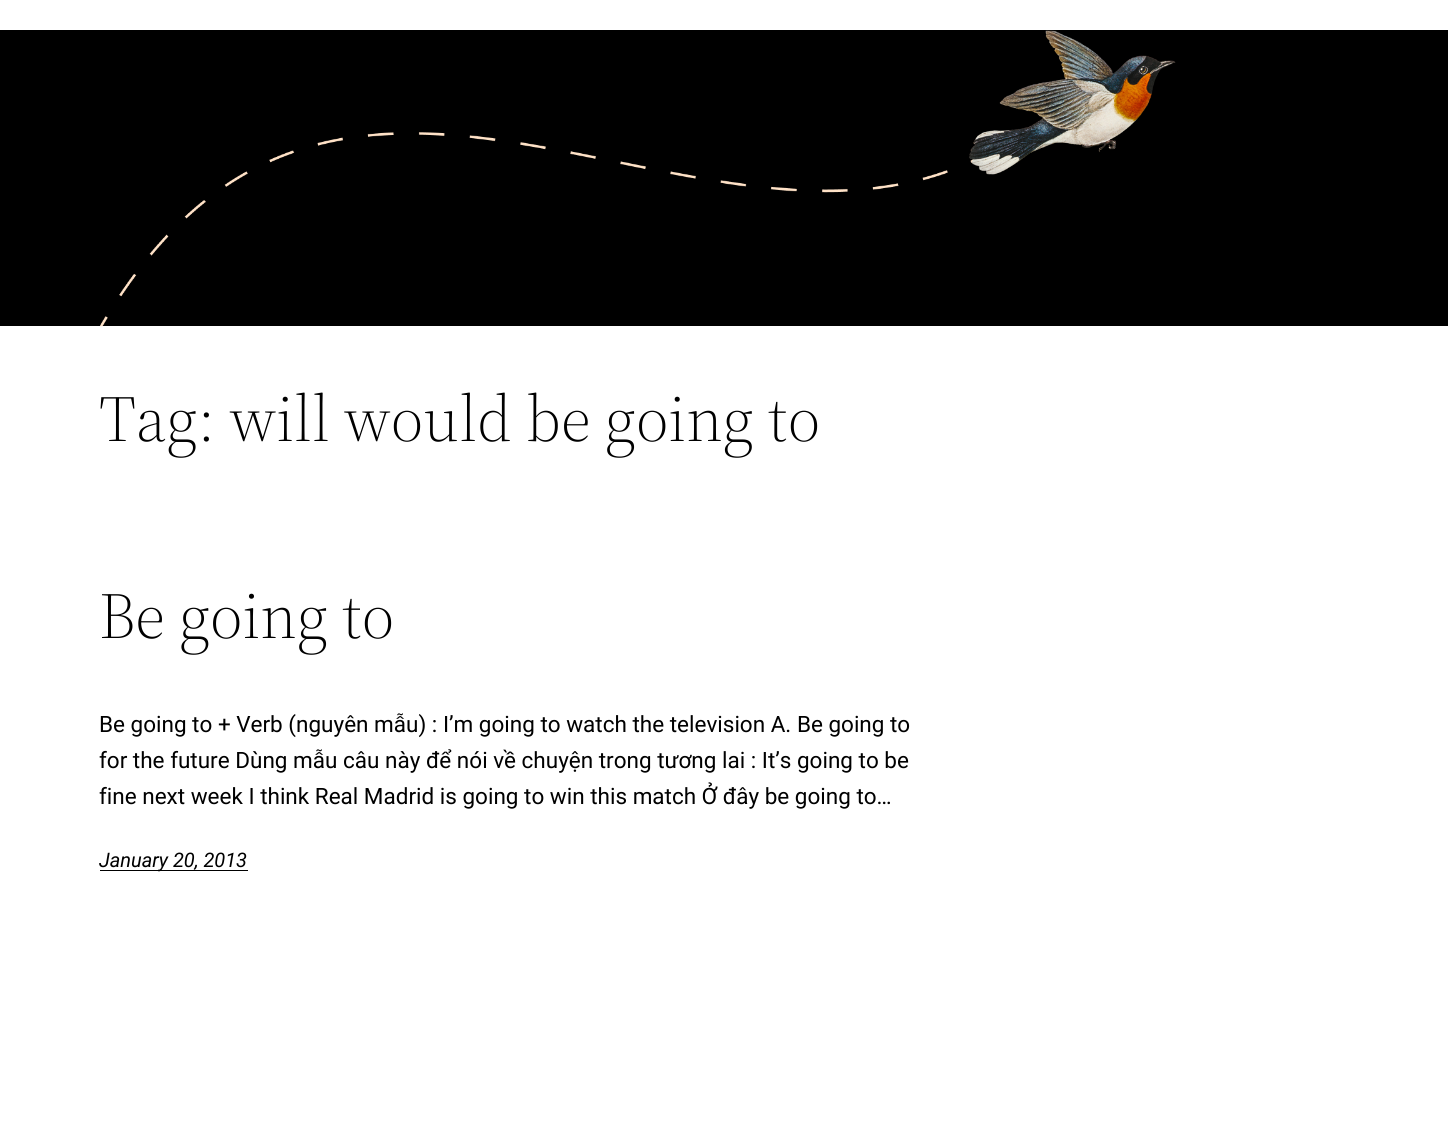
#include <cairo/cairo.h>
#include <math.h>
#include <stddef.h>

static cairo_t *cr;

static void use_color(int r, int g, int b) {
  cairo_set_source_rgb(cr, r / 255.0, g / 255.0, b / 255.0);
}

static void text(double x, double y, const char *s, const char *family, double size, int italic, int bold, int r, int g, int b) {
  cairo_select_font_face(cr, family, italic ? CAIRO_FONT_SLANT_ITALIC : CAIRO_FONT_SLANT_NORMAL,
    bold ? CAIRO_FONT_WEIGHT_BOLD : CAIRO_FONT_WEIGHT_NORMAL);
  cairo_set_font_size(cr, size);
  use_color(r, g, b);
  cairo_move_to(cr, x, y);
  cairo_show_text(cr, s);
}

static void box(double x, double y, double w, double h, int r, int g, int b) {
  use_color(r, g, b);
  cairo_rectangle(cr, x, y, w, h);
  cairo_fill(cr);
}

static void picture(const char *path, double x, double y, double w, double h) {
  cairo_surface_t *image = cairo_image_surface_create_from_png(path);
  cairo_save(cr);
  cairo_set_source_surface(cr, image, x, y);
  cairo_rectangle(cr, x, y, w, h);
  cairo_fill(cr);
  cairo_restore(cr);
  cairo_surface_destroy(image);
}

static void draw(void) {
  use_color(255, 255, 255);
  cairo_paint(cr);
  box(0, 30, 1448, 296, 0, 0, 0);
  picture("img_01.png", 100, 30, 1076, 297);
  box(100, 870, 148, 1, 0, 0, 0);
  text(99, 441, "Tag: will would be going to", "Source Serif 4 Light", 65, 0, 0, 0, 0, 0);
  text(99, 638, "Be going to", "Source Serif 4 Light", 65, 0, 0, 0, 0, 0);
  text(99, 732, "Be going to + Verb (nguyên mẫu) : I’m going to watch the television A. Be going to", "Roboto", 22.5, 0, 0, 0, 0, 0);
  text(99, 768, "for the future Dùng mẫu câu này để nói về chuyện trong tương lai : It’s going to be", "Roboto", 22.5, 0, 0, 0, 0, 0);
  text(99, 804, "fine next week I think Real Madrid is going to win this match Ở đây be going to…", "Roboto", 22.5, 0, 0, 0, 0, 0);
  text(99, 867, "January 20, 2013", "Roboto", 20, 1, 0, 0, 0, 0);
}

int main(void) {
  cairo_surface_t *surface = cairo_image_surface_create(CAIRO_FORMAT_RGB24, 1448, 1138);
  cr = cairo_create(surface);
  cairo_font_options_t *options = cairo_font_options_create();
  cairo_font_options_set_hint_metrics(options, CAIRO_HINT_METRICS_OFF);
  cairo_font_options_set_hint_style(options, CAIRO_HINT_STYLE_NONE);
  cairo_set_font_options(cr, options);
  cairo_set_miter_limit(cr, 4);
  draw();
  cairo_surface_write_to_png(surface, "out.png");
  cairo_font_options_destroy(options);
  cairo_destroy(cr);
  cairo_surface_destroy(surface);
  return 0;
}
